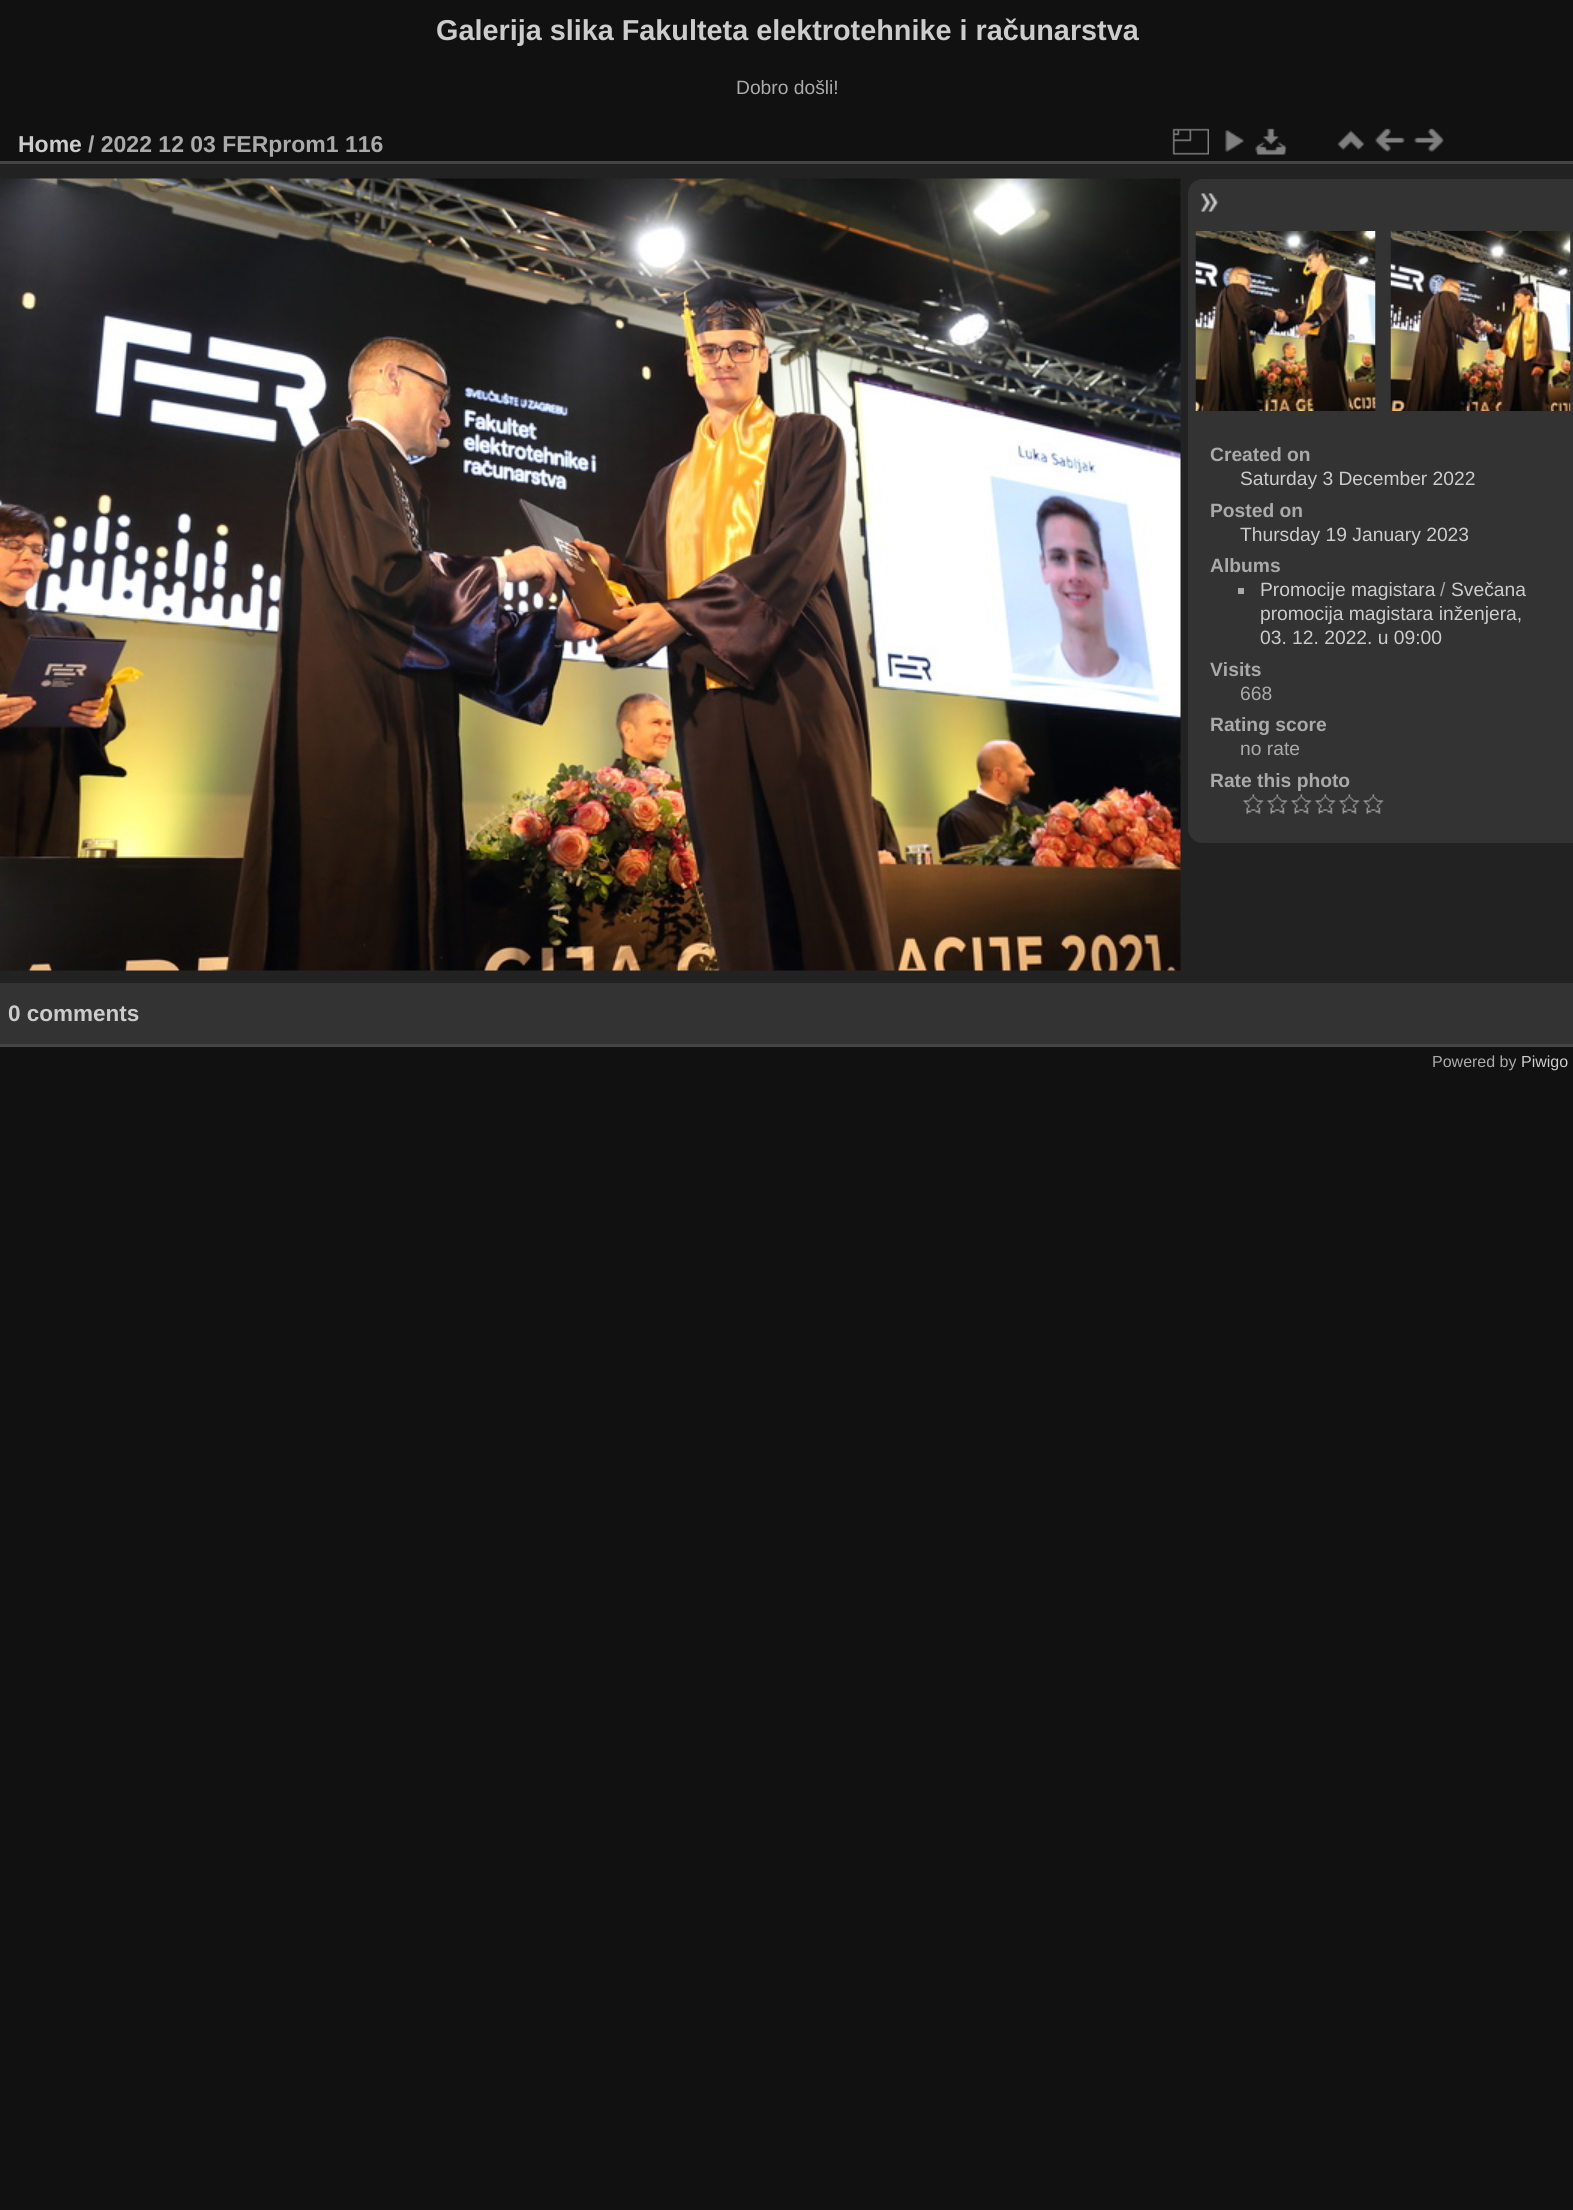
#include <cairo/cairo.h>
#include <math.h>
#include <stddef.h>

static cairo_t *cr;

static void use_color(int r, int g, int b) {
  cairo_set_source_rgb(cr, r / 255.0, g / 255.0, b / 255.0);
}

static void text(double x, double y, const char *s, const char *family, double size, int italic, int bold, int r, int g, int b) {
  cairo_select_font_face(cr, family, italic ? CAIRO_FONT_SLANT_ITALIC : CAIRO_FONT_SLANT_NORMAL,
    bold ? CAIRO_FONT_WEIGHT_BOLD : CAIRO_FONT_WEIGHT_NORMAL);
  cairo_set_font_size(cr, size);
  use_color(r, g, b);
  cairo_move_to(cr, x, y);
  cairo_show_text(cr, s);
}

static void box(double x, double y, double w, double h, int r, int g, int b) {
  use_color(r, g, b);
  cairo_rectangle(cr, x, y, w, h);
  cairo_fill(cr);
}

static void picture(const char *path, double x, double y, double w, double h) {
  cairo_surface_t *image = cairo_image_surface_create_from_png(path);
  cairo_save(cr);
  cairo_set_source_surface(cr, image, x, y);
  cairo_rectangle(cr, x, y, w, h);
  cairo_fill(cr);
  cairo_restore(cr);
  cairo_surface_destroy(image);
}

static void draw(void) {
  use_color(17, 17, 17);
  cairo_paint(cr);
  box(0, 164, 1573, 819, 34, 34, 34);
  box(0, 1044, 1573, 3, 68, 68, 68);
  box(0, 161, 1573, 3, 68, 68, 68);
  picture("img_01.png", 1172, 128, 37, 27);
  picture("img_02.png", 1225, 130, 19, 22);
  picture("img_03.png", 1255, 128, 32, 27);
  picture("img_04.png", 1337, 130, 27, 21);
  picture("img_05.png", 1375, 128, 30, 24);
  picture("img_06.png", 1414, 128, 30, 24);
  picture("img_07.png", 0, 178, 1181, 793);
  use_color(51, 51, 51);
  cairo_new_path(cr);
  cairo_move_to(cr, 1203, 179);
  cairo_line_to(cr, 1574, 179);
  cairo_line_to(cr, 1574, 843);
  cairo_line_to(cr, 1203, 843);
  cairo_curve_to(cr, 1194.5, 843, 1188, 836.5, 1188, 828);
  cairo_line_to(cr, 1188, 194);
  cairo_curve_to(cr, 1188, 185.5, 1194.5, 179, 1203, 179);
  cairo_close_path(cr);
  cairo_fill(cr);
  picture("img_08.png", 1200, 193, 19, 19);
  picture("img_09.png", 1195, 231, 181, 180);
  picture("img_10.png", 1390, 231, 181, 180);
  box(1238, 588, 6, 6, 170, 170, 170);
  picture("img_11.png", 1243, 794, 21, 20);
  picture("img_11.png", 1267, 794, 21, 20);
  picture("img_12.png", 1291, 794, 21, 20);
  picture("img_12.png", 1315, 794, 21, 20);
  picture("img_12.png", 1339, 794, 21, 20);
  picture("img_12.png", 1363, 794, 21, 20);
  box(0, 983, 1573, 61, 51, 51, 51);
  text(436, 40, "Galerija slika Fakulteta elektrotehnike i računarstva", "Liberation Sans", 28.8, 0, 1, 204, 204, 204);
  text(736, 94, "Dobro došli!", "Liberation Sans", 19.25, 0, 0, 170, 170, 170);
  text(18, 152, "Home", "Liberation Sans", 23, 0, 1, 204, 204, 204);
  text(88, 152, "/ 2022 12 03 FERprom1 116", "Liberation Sans", 23, 0, 1, 170, 170, 170);
  text(1210, 461, "Created on", "Liberation Sans", 19.25, 0, 1, 170, 170, 170);
  text(1240, 485, "Saturday 3 December 2022", "Liberation Sans", 19.25, 0, 0, 204, 204, 204);
  text(1210, 517, "Posted on", "Liberation Sans", 19.25, 0, 1, 170, 170, 170);
  text(1240, 541, "Thursday 19 January 2023", "Liberation Sans", 19.25, 0, 0, 204, 204, 204);
  text(1210, 572, "Albums", "Liberation Sans", 19.25, 0, 1, 170, 170, 170);
  text(1260, 596, "Promocije magistara", "Liberation Sans", 19.25, 0, 0, 204, 204, 204);
  text(1440, 596, "/", "Liberation Sans", 19.25, 0, 0, 170, 170, 170);
  text(1451, 596, "Svečana", "Liberation Sans", 19.25, 0, 0, 204, 204, 204);
  text(1260, 620, "promocija magistara inženjera,", "Liberation Sans", 19.25, 0, 0, 204, 204, 204);
  text(1260, 644, "03. 12. 2022. u 09:00", "Liberation Sans", 19.25, 0, 0, 204, 204, 204);
  text(1210, 676, "Visits", "Liberation Sans", 19.25, 0, 1, 170, 170, 170);
  text(1240, 700, "668", "Liberation Sans", 19.25, 0, 0, 170, 170, 170);
  text(1210, 731, "Rating score", "Liberation Sans", 19.25, 0, 1, 170, 170, 170);
  text(1240, 755, "no rate", "Liberation Sans", 19.25, 0, 0, 170, 170, 170);
  text(1210, 787, "Rate this photo", "Liberation Sans", 19.25, 0, 1, 170, 170, 170);
  text(8, 1021, "0 comments", "Liberation Sans", 22.5, 0, 1, 204, 204, 204);
  text(1432, 1067, "Powered by", "Liberation Sans", 16, 0, 0, 170, 170, 170);
  text(1521, 1067, "Piwigo", "Liberation Sans", 16, 0, 0, 204, 204, 204);
}

int main(void) {
  cairo_surface_t *surface = cairo_image_surface_create(CAIRO_FORMAT_RGB24, 1573, 2210);
  cr = cairo_create(surface);
  cairo_font_options_t *options = cairo_font_options_create();
  cairo_font_options_set_hint_metrics(options, CAIRO_HINT_METRICS_OFF);
  cairo_font_options_set_hint_style(options, CAIRO_HINT_STYLE_NONE);
  cairo_set_font_options(cr, options);
  cairo_set_miter_limit(cr, 4);
  draw();
  cairo_surface_write_to_png(surface, "out.png");
  cairo_font_options_destroy(options);
  cairo_destroy(cr);
  cairo_surface_destroy(surface);
  return 0;
}
